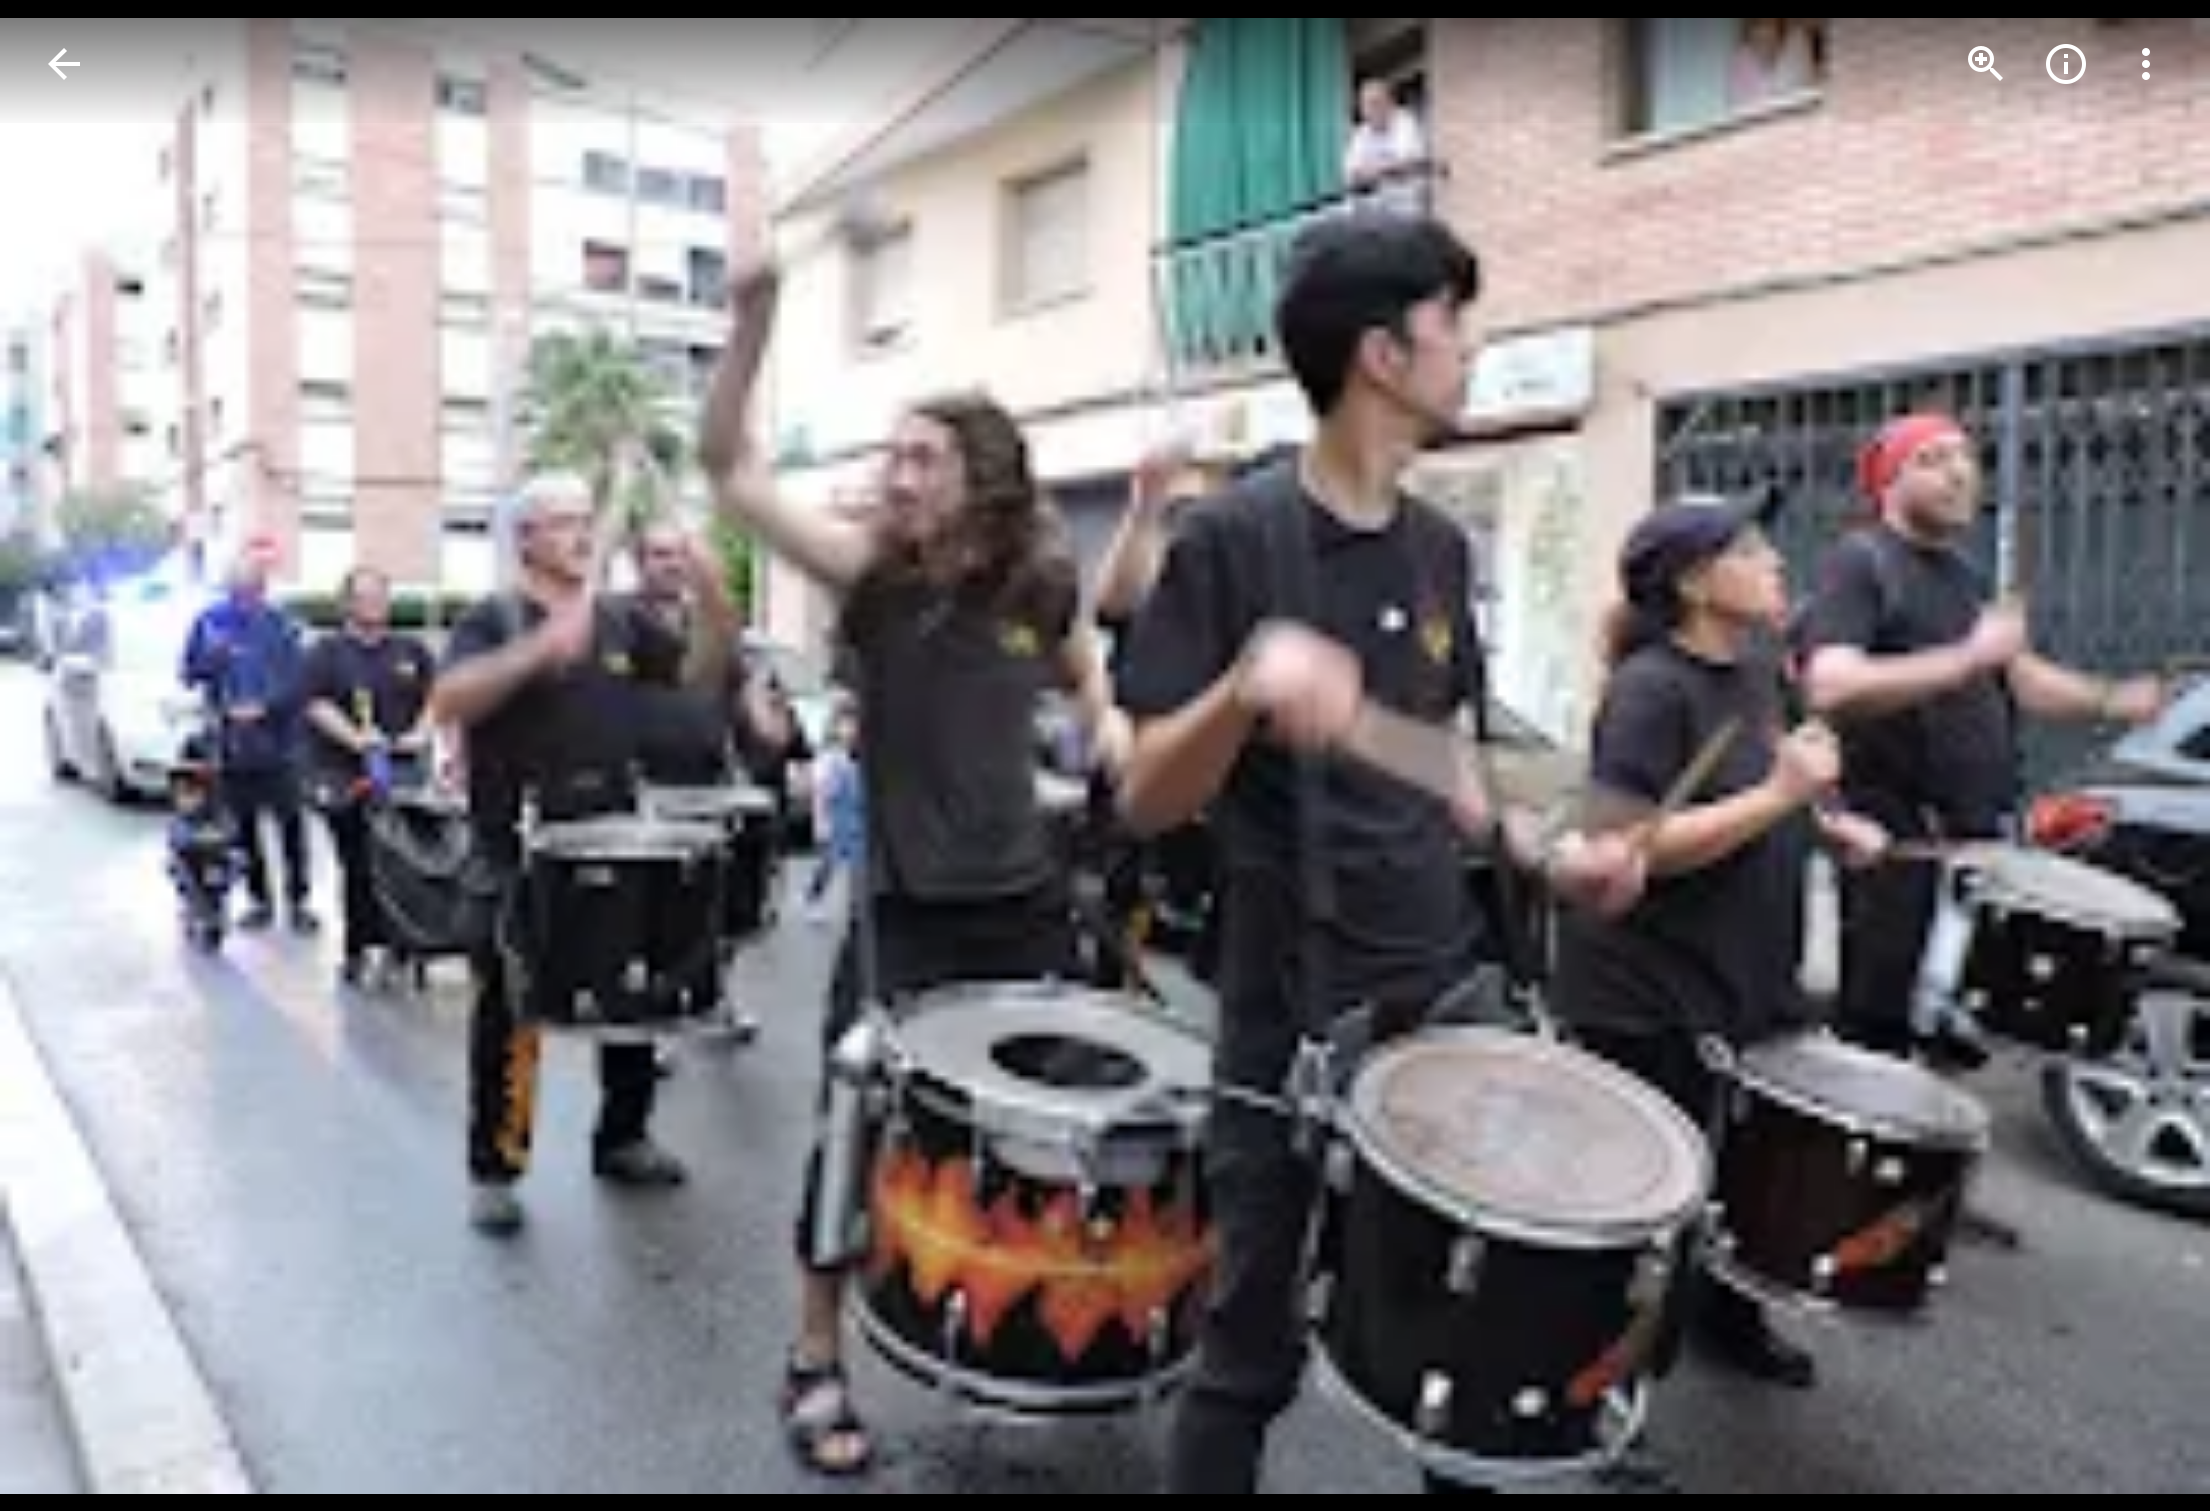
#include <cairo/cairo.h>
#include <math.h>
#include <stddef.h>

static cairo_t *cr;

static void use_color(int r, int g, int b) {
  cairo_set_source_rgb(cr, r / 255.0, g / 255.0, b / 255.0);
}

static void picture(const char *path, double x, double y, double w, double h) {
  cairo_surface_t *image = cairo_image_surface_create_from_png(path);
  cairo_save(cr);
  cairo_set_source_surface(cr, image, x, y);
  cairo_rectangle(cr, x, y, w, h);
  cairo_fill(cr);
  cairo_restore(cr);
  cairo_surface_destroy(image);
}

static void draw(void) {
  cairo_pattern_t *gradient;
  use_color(0, 0, 0);
  cairo_paint(cr);
  picture("img_01.png", 0, 18, 2210, 1476);
  gradient = cairo_pattern_create_linear(1105, 0, 1105, 128);
  cairo_pattern_add_color_stop_rgba(gradient, 0, 0, 0, 0, 0.6);
  cairo_pattern_add_color_stop_rgba(gradient, 1, 0, 0, 0, 0);
  cairo_set_source(cr, gradient);
  cairo_pattern_destroy(gradient);
  cairo_rectangle(cr, 0, 18, 2210, 105);
  cairo_fill(cr);
  use_color(255, 255, 255);
  cairo_new_path(cr);
  cairo_move_to(cr, 80, 62);
  cairo_line_to(cr, 55.5, 62);
  cairo_line_to(cr, 67, 51);
  cairo_line_to(cr, 64, 48);
  cairo_line_to(cr, 48, 64);
  cairo_line_to(cr, 64, 80);
  cairo_line_to(cr, 67, 77);
  cairo_line_to(cr, 55.5, 66);
  cairo_line_to(cr, 80, 66);
  cairo_close_path(cr);
  cairo_fill(cr);
  picture("img_02.png", 1968, 46, 35, 35);
  picture("img_03.png", 2046, 44, 40, 40);
  picture("img_04.png", 2142, 48, 8, 32);
}

int main(void) {
  cairo_surface_t *surface = cairo_image_surface_create(CAIRO_FORMAT_RGB24, 2210, 1511);
  cr = cairo_create(surface);
  cairo_font_options_t *options = cairo_font_options_create();
  cairo_font_options_set_hint_metrics(options, CAIRO_HINT_METRICS_OFF);
  cairo_font_options_set_hint_style(options, CAIRO_HINT_STYLE_NONE);
  cairo_set_font_options(cr, options);
  cairo_set_miter_limit(cr, 4);
  draw();
  cairo_surface_write_to_png(surface, "out.png");
  cairo_font_options_destroy(options);
  cairo_destroy(cr);
  cairo_surface_destroy(surface);
  return 0;
}
